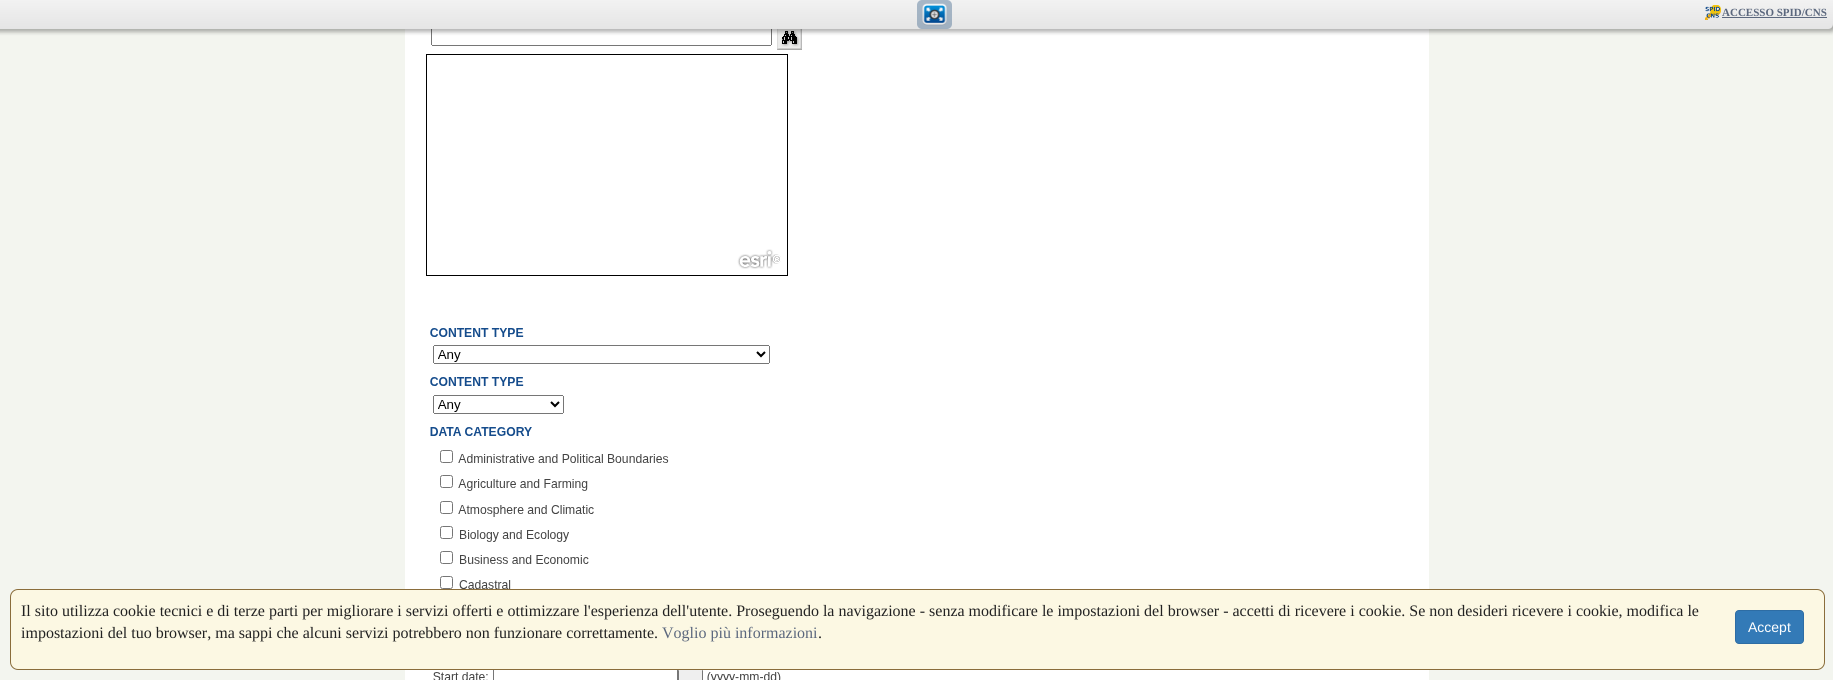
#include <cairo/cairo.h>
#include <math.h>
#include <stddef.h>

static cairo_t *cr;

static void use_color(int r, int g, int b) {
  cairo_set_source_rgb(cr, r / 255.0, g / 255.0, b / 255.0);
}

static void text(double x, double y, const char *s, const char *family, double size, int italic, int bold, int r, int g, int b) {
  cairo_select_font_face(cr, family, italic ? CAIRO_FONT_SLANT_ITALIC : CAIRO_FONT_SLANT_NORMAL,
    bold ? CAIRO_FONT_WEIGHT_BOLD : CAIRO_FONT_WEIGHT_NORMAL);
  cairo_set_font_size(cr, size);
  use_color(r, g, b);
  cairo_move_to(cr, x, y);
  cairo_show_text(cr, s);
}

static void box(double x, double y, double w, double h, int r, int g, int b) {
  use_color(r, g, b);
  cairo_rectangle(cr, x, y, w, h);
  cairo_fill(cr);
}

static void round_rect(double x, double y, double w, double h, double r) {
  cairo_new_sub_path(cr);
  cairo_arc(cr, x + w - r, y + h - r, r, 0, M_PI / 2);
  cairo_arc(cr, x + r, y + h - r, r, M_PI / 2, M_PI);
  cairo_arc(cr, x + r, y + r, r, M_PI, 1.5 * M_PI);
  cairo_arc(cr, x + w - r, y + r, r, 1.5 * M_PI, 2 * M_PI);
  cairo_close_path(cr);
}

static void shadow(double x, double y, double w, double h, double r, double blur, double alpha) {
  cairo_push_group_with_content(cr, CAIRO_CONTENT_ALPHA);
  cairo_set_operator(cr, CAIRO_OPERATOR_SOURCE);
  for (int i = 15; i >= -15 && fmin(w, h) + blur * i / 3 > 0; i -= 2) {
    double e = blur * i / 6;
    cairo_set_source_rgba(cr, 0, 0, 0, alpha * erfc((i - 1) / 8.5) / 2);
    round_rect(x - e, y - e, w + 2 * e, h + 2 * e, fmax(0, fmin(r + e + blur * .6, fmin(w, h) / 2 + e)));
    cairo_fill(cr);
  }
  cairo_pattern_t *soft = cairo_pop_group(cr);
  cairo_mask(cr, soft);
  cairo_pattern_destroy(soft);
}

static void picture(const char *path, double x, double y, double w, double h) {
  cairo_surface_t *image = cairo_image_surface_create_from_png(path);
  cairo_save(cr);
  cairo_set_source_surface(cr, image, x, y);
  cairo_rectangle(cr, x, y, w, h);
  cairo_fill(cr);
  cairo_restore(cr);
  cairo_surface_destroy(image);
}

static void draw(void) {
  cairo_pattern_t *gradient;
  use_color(255, 255, 255);
  cairo_paint(cr);
  picture("img_03.png", 0, 24, 1833, 656);
  use_color(0, 0, 0);
  shadow(3, 3, 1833, 22, 5, 2, 0.3);
  shadow(-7, 3, 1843, 29, 5, 2, 0.3);
  gradient = cairo_pattern_create_linear(912, 0, 912, 29);
  cairo_pattern_add_color_stop_rgba(gradient, 0, 0.949, 0.949, 0.949, 1);
  cairo_pattern_add_color_stop_rgba(gradient, 1, 0.898, 0.898, 0.898, 1);
  cairo_set_source(cr, gradient);
  cairo_pattern_destroy(gradient);
  cairo_new_path(cr);
  cairo_move_to(cr, -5, 0);
  cairo_line_to(cr, 1833, 0);
  cairo_line_to(cr, 1833, 24);
  cairo_curve_to(cr, 1833, 27, 1831, 29, 1828, 29);
  cairo_line_to(cr, 0, 29);
  cairo_curve_to(cr, -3, 29, -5, 27, -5, 24);
  cairo_close_path(cr);
  cairo_fill(cr);
  cairo_set_source_rgba(cr, 0.361, 0.486, 0.616, 0.5);
  round_rect(917, 0, 35, 29, 5);
  cairo_fill(cr);
  picture("img_01.png", 922, 3, 25, 23);
  picture("img_02.png", 1705, 5, 16, 15);
  box(1722, 17, 105, 1, 91, 103, 125);
  use_color(252, 248, 227);
  round_rect(10.5, 589.5, 1814, 80, 7.5);
  cairo_fill_preserve(cr);
  use_color(138, 109, 59);
  cairo_set_line_width(cr, 1);
  cairo_stroke(cr);
  use_color(51, 122, 183);
  round_rect(1735.5, 610.5, 68, 33, 3.5);
  cairo_fill_preserve(cr);
  use_color(46, 109, 164);
  cairo_stroke(cr);
  text(1722, 16, "ACCESSO SPID/CNS", "Liberation Serif", 11, 0, 1, 91, 103, 125);
  text(21, 616, "Il sito utilizza cookie tecnici e di terze parti per migliorare i servizi offerti e ottimizzare l'esperienza dell'utente. Proseguendo la navigazione - senza modificare le impostazioni del browser - accetti di ricevere i cookie. Se non desideri ricevere i cookie, modifica le", "Liberation Serif", 16, 0, 0, 34, 34, 34);
  text(21, 638, "impostazioni del tuo browser, ma sappi che alcuni servizi potrebbero non funzionare correttamente.", "Liberation Serif", 16, 0, 0, 34, 34, 34);
  text(662, 638, "Voglio più informazioni", "Liberation Serif", 16, 0, 0, 91, 103, 125);
  text(818, 638, ".", "Liberation Serif", 16, 0, 0, 34, 34, 34);
  text(1748, 632, "Accept", "Liberation Sans", 14, 0, 0, 255, 255, 255);
}

int main(void) {
  cairo_surface_t *surface = cairo_image_surface_create(CAIRO_FORMAT_RGB24, 1833, 680);
  cr = cairo_create(surface);
  cairo_font_options_t *options = cairo_font_options_create();
  cairo_font_options_set_hint_metrics(options, CAIRO_HINT_METRICS_OFF);
  cairo_font_options_set_hint_style(options, CAIRO_HINT_STYLE_NONE);
  cairo_set_font_options(cr, options);
  cairo_set_miter_limit(cr, 4);
  draw();
  cairo_surface_write_to_png(surface, "out.png");
  cairo_font_options_destroy(options);
  cairo_destroy(cr);
  cairo_surface_destroy(surface);
  return 0;
}
